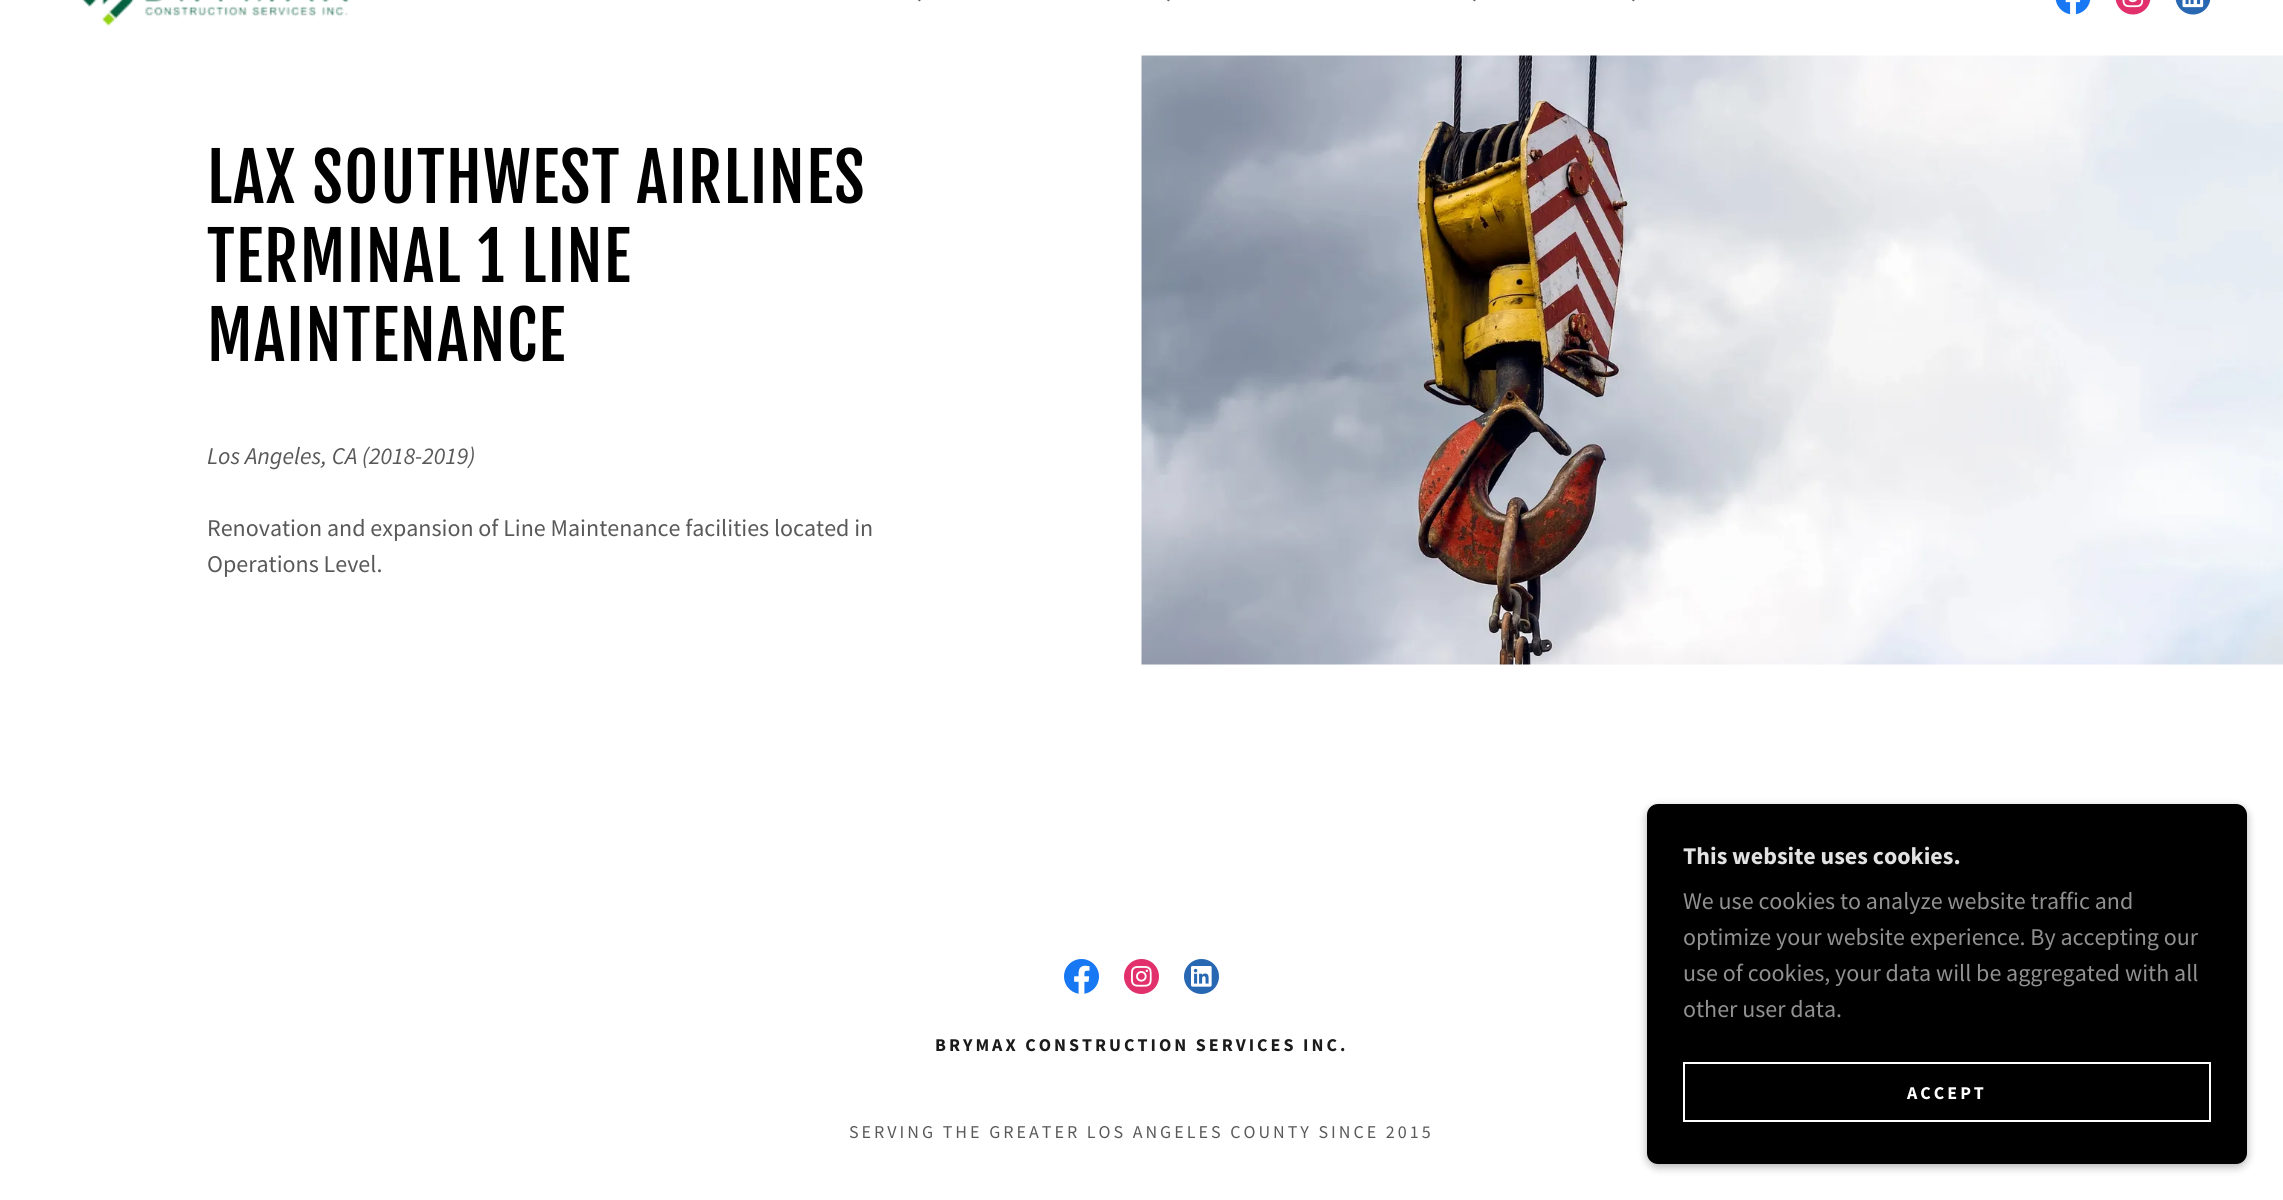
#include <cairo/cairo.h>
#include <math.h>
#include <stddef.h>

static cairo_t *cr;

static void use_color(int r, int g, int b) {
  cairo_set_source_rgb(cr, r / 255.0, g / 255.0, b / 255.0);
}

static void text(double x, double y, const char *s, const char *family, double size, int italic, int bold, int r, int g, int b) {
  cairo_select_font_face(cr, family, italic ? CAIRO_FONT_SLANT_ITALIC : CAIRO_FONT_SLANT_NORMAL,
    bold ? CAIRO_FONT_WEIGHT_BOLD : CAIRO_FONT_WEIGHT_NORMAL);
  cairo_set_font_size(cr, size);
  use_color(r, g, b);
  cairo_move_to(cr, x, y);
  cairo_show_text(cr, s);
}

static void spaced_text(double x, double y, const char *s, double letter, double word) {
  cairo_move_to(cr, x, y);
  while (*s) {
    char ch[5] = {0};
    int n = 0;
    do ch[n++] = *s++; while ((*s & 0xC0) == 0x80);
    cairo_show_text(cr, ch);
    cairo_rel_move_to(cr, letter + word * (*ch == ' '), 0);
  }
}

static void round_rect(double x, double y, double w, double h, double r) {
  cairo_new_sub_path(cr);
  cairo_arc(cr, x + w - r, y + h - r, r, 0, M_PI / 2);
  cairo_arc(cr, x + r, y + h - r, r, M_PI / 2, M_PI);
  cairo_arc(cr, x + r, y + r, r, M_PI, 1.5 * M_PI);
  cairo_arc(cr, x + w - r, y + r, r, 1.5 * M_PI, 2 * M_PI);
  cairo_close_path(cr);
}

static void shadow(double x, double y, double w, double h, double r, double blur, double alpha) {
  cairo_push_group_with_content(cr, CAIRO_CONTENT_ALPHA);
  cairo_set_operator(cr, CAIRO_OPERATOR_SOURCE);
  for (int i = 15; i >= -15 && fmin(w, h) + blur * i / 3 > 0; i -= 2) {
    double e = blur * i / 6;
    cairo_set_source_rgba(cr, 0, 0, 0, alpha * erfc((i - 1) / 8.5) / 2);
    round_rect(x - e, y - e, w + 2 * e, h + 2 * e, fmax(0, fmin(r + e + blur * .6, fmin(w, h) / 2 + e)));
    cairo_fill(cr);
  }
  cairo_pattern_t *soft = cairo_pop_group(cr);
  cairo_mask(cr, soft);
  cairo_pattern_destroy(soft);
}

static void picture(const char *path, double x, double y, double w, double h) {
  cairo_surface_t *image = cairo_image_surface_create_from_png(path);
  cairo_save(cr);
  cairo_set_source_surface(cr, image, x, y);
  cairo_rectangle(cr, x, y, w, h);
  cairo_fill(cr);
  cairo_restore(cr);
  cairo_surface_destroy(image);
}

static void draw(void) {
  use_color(255, 255, 255);
  cairo_paint(cr);
  picture("img_01.png", 82, 0, 267, 26);
  picture("img_02.png", 918, 0, 3, 2);
  picture("img_02.png", 1167, 0, 3, 2);
  picture("img_02.png", 1473, 0, 3, 2);
  picture("img_02.png", 1632, 0, 3, 2);
  picture("img_03.png", 2055, 0, 36, 15);
  picture("img_04.png", 2115, 0, 36, 15);
  picture("img_05.png", 2175, 0, 36, 15);
  picture("img_06.png", 1141, 55, 1142, 610);
  picture("img_07.png", 1064, 959, 35, 35);
  picture("img_08.png", 1124, 959, 35, 35);
  picture("img_09.png", 1184, 959, 35, 35);
  use_color(0, 0, 0);
  shadow(1647, 807, 600, 360, 11, 4.5, 0.3);
  use_color(0, 0, 0);
  round_rect(1647, 804, 600, 360, 11);
  cairo_fill(cr);
  cairo_rectangle(cr, 1684, 1063, 526, 58);
  use_color(255, 255, 255);
  cairo_stroke(cr);
  cairo_select_font_face(cr, "Fjalla One", CAIRO_FONT_SLANT_NORMAL, CAIRO_FONT_WEIGHT_NORMAL);
  cairo_set_font_size(cr, 66);
  use_color(0, 0, 0);
  spaced_text(207, 203, "LAX SOUTHWEST AIRLINES", 1.5, 0);
  spaced_text(207, 282, "TERMINAL 1 LINE", 1.5, 0);
  spaced_text(207, 361, "MAINTENANCE", 1.5, 0);
  text(207, 464, "Los Angeles, CA (2018-2019)", "Source Sans Pro", 24, 1, 0, 89, 89, 89);
  text(207, 536, "Renovation and expansion of Line Maintenance facilities located in", "Source Sans Pro", 24, 0, 0, 89, 89, 89);
  text(207, 572, "Operations Level.", "Source Sans Pro", 24, 0, 0, 89, 89, 89);
  cairo_select_font_face(cr, "Source Sans Pro", CAIRO_FONT_SLANT_NORMAL, CAIRO_FONT_WEIGHT_BOLD);
  cairo_set_font_size(cr, 18);
  use_color(27, 27, 27);
  spaced_text(935, 1051, "BRYMAX CONSTRUCTION SERVICES INC.", 3, 0);
  cairo_select_font_face(cr, "Source Sans Pro", CAIRO_FONT_SLANT_NORMAL, CAIRO_FONT_WEIGHT_NORMAL);
  use_color(89, 89, 89);
  spaced_text(849, 1138, "SERVING THE GREATER LOS ANGELES COUNTY SINCE 2015", 3, 0);
  text(1683, 864, "This website uses cookies.", "Source Sans Pro", 24, 0, 1, 226, 226, 226);
  text(1683, 909, "We use cookies to analyze website traffic and", "Source Sans Pro", 24, 0, 0, 145, 145, 145);
  text(1683, 945, "optimize your website experience. By accepting our", "Source Sans Pro", 24, 0, 0, 145, 145, 145);
  text(1683, 981, "use of cookies, your data will be aggregated with all", "Source Sans Pro", 24, 0, 0, 145, 145, 145);
  text(1683, 1017, "other user data.", "Source Sans Pro", 24, 0, 0, 145, 145, 145);
  cairo_select_font_face(cr, "Source Sans Pro", CAIRO_FONT_SLANT_NORMAL, CAIRO_FONT_WEIGHT_BOLD);
  cairo_set_font_size(cr, 18);
  use_color(255, 255, 255);
  spaced_text(1907, 1099, "ACCEPT", 3, 0);
}

int main(void) {
  cairo_surface_t *surface = cairo_image_surface_create(CAIRO_FORMAT_RGB24, 2283, 1200);
  cr = cairo_create(surface);
  cairo_font_options_t *options = cairo_font_options_create();
  cairo_font_options_set_hint_metrics(options, CAIRO_HINT_METRICS_OFF);
  cairo_font_options_set_hint_style(options, CAIRO_HINT_STYLE_NONE);
  cairo_set_font_options(cr, options);
  cairo_set_miter_limit(cr, 4);
  draw();
  cairo_surface_write_to_png(surface, "out.png");
  cairo_font_options_destroy(options);
  cairo_destroy(cr);
  cairo_surface_destroy(surface);
  return 0;
}
